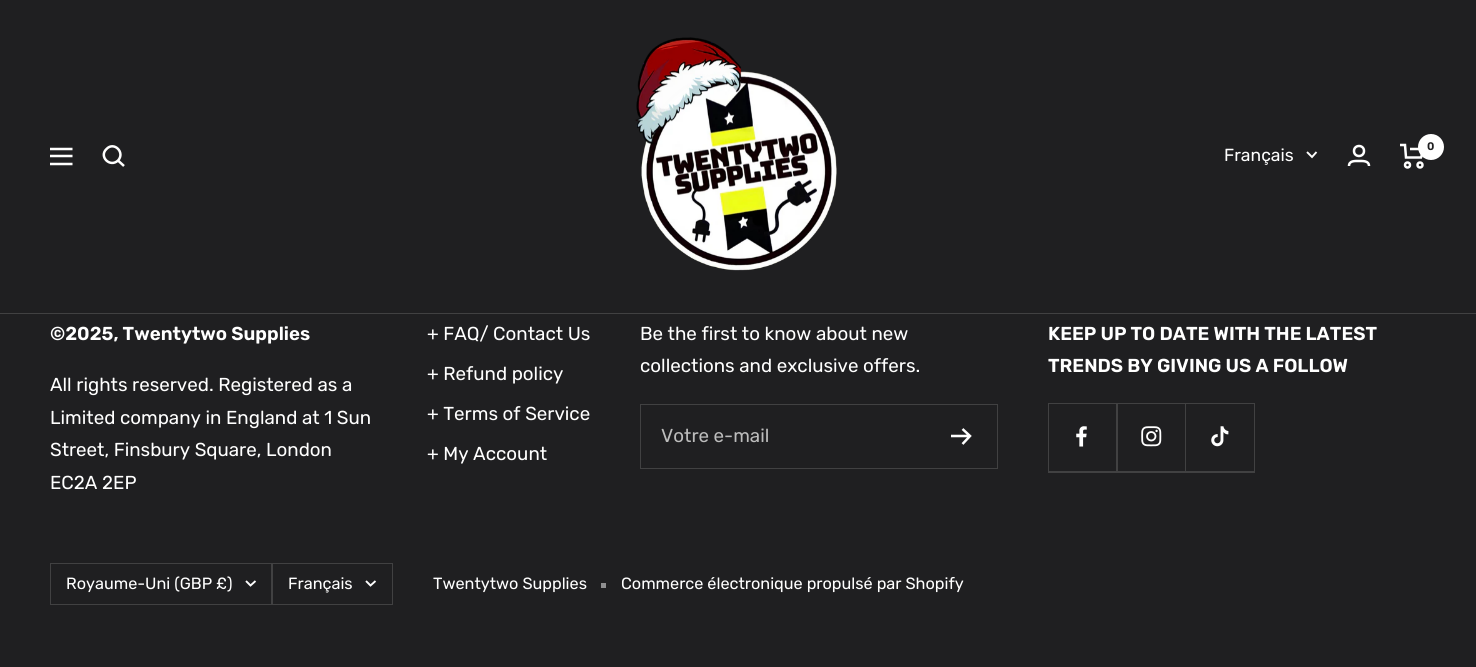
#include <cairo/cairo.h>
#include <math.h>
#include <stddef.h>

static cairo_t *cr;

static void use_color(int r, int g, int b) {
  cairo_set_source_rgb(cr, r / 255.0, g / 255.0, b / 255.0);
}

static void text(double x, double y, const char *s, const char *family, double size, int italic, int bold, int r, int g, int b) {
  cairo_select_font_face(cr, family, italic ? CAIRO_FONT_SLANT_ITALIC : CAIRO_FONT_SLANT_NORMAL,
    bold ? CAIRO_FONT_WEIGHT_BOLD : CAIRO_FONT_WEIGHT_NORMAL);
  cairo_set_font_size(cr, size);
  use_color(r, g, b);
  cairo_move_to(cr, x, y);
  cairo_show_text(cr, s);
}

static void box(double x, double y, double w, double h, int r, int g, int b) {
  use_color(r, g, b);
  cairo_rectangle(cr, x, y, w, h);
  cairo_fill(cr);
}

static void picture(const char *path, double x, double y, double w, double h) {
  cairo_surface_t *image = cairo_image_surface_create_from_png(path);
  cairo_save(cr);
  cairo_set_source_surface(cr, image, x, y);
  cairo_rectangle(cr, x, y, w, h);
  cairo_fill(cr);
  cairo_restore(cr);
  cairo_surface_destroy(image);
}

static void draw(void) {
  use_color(31, 31, 33);
  cairo_paint(cr);
  box(0, 313, 1476, 1, 65, 65, 66);
  cairo_new_path(cr);
  cairo_move_to(cr, 50, 149);
  cairo_line_to(cr, 72.5, 149);
  cairo_move_to(cr, 50, 164);
  cairo_line_to(cr, 72.5, 164);
  cairo_close_path(cr);
  cairo_move_to(cr, 50, 156);
  cairo_line_to(cr, 72.5, 156);
  cairo_close_path(cr);
  use_color(255, 255, 255);
  cairo_set_line_width(cr, 2.5);
  cairo_stroke(cr);
  cairo_new_path(cr);
  cairo_move_to(cr, 118, 160.5);
  cairo_curve_to(cr, 125.5, 152.5, 114, 141, 106.5, 149);
  cairo_curve_to(cr, 98.5, 156.5, 110, 168, 118, 160.5);
  cairo_close_path(cr);
  cairo_move_to(cr, 118, 160.5);
  cairo_line_to(cr, 124, 166);
  cairo_stroke(cr);
  picture("img_01.png", 635, 37, 202, 234);
  cairo_arc(cr, 1359, 151, 5, 0, 2 * M_PI);
  cairo_stroke(cr);
  cairo_new_path(cr);
  cairo_move_to(cr, 1349, 166);
  cairo_curve_to(cr, 1349, 160.5, 1355, 161, 1359, 161);
  cairo_curve_to(cr, 1362.5, 161, 1369, 160.5, 1369, 166);
  cairo_stroke(cr);
  cairo_new_path(cr);
  cairo_move_to(cr, 1400, 145);
  cairo_line_to(cr, 1405, 145);
  cairo_line_to(cr, 1406, 157.5);
  cairo_line_to(cr, 1421, 157.5);
  cairo_line_to(cr, 1424, 149);
  cairo_line_to(cr, 1410, 149);
  cairo_stroke(cr);
  cairo_arc(cr, 1407.5, 165, 2.5, 0, 2 * M_PI);
  cairo_stroke(cr);
  cairo_arc(cr, 1420, 165, 2.5, 0, 2 * M_PI);
  cairo_stroke(cr);
  cairo_arc(cr, 1431, 147, 13, 0, 2 * M_PI);
  cairo_fill(cr);
  cairo_new_path(cr);
  cairo_move_to(cr, 1307, 152);
  cairo_line_to(cr, 1312, 157);
  cairo_line_to(cr, 1316.5, 152);
  cairo_set_line_width(cr, 1.9);
  cairo_stroke(cr);
  cairo_rectangle(cr, 640.5, 404.5, 357, 64);
  use_color(65, 65, 66);
  cairo_set_line_width(cr, 1);
  cairo_stroke(cr);
  cairo_new_path(cr);
  cairo_move_to(cr, 951, 436);
  cairo_line_to(cr, 970, 436);
  cairo_move_to(cr, 962.5, 429);
  cairo_line_to(cr, 970, 436);
  cairo_line_to(cr, 962.5, 444);
  use_color(255, 255, 255);
  cairo_set_line_width(cr, 2.5);
  cairo_stroke(cr);
  use_color(65, 65, 66);
  cairo_new_path(cr);
  cairo_move_to(cr, 1049, 471);
  cairo_line_to(cr, 1049, 473);
  cairo_line_to(cr, 1118, 473);
  cairo_line_to(cr, 1118, 404);
  cairo_line_to(cr, 1116, 404);
  cairo_line_to(cr, 1116, 471);
  cairo_close_path(cr);
  cairo_fill(cr);
  box(1048, 471, 1, 2, 65, 65, 66);
  box(1048, 403, 70, 1, 65, 65, 66);
  box(1048, 403, 1, 68, 65, 65, 66);
  picture("img_02.png", 1076, 426, 11, 21);
  cairo_new_path(cr);
  cairo_move_to(cr, 1118, 471);
  cairo_line_to(cr, 1118, 473);
  cairo_line_to(cr, 1186, 473);
  cairo_line_to(cr, 1186, 404);
  cairo_line_to(cr, 1185, 404);
  cairo_line_to(cr, 1185, 471);
  cairo_close_path(cr);
  cairo_fill(cr);
  box(1116, 403, 70, 1, 65, 65, 66);
  picture("img_03.png", 1141, 426, 21, 21);
  cairo_new_path(cr);
  cairo_move_to(cr, 1186, 471);
  cairo_line_to(cr, 1186, 473);
  cairo_line_to(cr, 1255, 473);
  cairo_line_to(cr, 1255, 404);
  cairo_line_to(cr, 1254, 404);
  cairo_line_to(cr, 1254, 471);
  cairo_close_path(cr);
  cairo_fill(cr);
  box(1185, 403, 70, 1, 65, 65, 66);
  picture("img_04.png", 1211, 426, 18, 21);
  cairo_rectangle(cr, 50.5, 563.5, 222, 41);
  cairo_set_line_width(cr, 1);
  cairo_stroke(cr);
  cairo_new_path(cr);
  cairo_move_to(cr, 246, 581);
  cairo_line_to(cr, 250.5, 585.5);
  cairo_line_to(cr, 255.5, 581);
  use_color(255, 255, 255);
  cairo_set_line_width(cr, 1.9);
  cairo_stroke(cr);
  cairo_rectangle(cr, 271.5, 563.5, 121, 41);
  use_color(65, 65, 66);
  cairo_set_line_width(cr, 1);
  cairo_stroke(cr);
  cairo_new_path(cr);
  cairo_move_to(cr, 366, 581);
  cairo_line_to(cr, 370.5, 585.5);
  cairo_line_to(cr, 375.5, 581);
  use_color(255, 255, 255);
  cairo_set_line_width(cr, 1.9);
  cairo_stroke(cr);
  box(601, 583, 5, 5, 143, 143, 144);
  text(1427, 150, "0", "Rubik SemiBold", 11, 0, 0, 31, 31, 33);
  text(1224, 161, "Français", "Rubik", 17.5, 0, 0, 255, 255, 255);
  text(50, 340, "©2025, Twentytwo Supplies", "Rubik SemiBold", 18.75, 0, 0, 255, 255, 255);
  text(50, 391, "All rights reserved. Registered as a", "Rubik", 18.75, 0, 0, 255, 255, 255);
  text(50, 424, "Limited company in England at 1 Sun", "Rubik", 18.75, 0, 0, 255, 255, 255);
  text(50, 456, "Street, Finsbury Square, London", "Rubik", 18.75, 0, 0, 255, 255, 255);
  text(50, 489, "EC2A 2EP", "Rubik", 18.75, 0, 0, 255, 255, 255);
  text(427, 340, "+ FAQ/ Contact Us", "Rubik", 18.75, 0, 0, 255, 255, 255);
  text(427, 380, "+ Refund policy", "Rubik", 18.75, 0, 0, 255, 255, 255);
  text(427, 420, "+ Terms of Service", "Rubik", 18.75, 0, 0, 255, 255, 255);
  text(427, 460, "+ My Account", "Rubik", 18.75, 0, 0, 255, 255, 255);
  text(640, 340, "Be the first to know about new", "Rubik", 18.75, 0, 0, 255, 255, 255);
  text(640, 372, "collections and exclusive offers.", "Rubik", 18.75, 0, 0, 255, 255, 255);
  text(661, 442, "Votre e-mail", "Rubik", 18.75, 0, 0, 188, 188, 188);
  text(1048, 340, "KEEP UP TO DATE WITH THE LATEST", "Rubik SemiBold", 18.75, 0, 0, 255, 255, 255);
  text(1048, 372, "TRENDS BY GIVING US A FOLLOW", "Rubik SemiBold", 18.75, 0, 0, 255, 255, 255);
  text(66, 589, "Royaume-Uni (GBP £)", "Rubik", 16.25, 0, 0, 255, 255, 255);
  text(288, 589, "Français", "Rubik", 16.25, 0, 0, 255, 255, 255);
  text(433, 589, "Twentytwo Supplies", "Rubik", 16.25, 0, 0, 255, 255, 255);
  text(621, 589, "Commerce électronique propulsé par Shopify", "Rubik", 16.25, 0, 0, 255, 255, 255);
}

int main(void) {
  cairo_surface_t *surface = cairo_image_surface_create(CAIRO_FORMAT_RGB24, 1476, 667);
  cr = cairo_create(surface);
  cairo_font_options_t *options = cairo_font_options_create();
  cairo_font_options_set_hint_metrics(options, CAIRO_HINT_METRICS_OFF);
  cairo_font_options_set_hint_style(options, CAIRO_HINT_STYLE_NONE);
  cairo_set_font_options(cr, options);
  cairo_set_miter_limit(cr, 4);
  draw();
  cairo_surface_write_to_png(surface, "out.png");
  cairo_font_options_destroy(options);
  cairo_destroy(cr);
  cairo_surface_destroy(surface);
  return 0;
}
